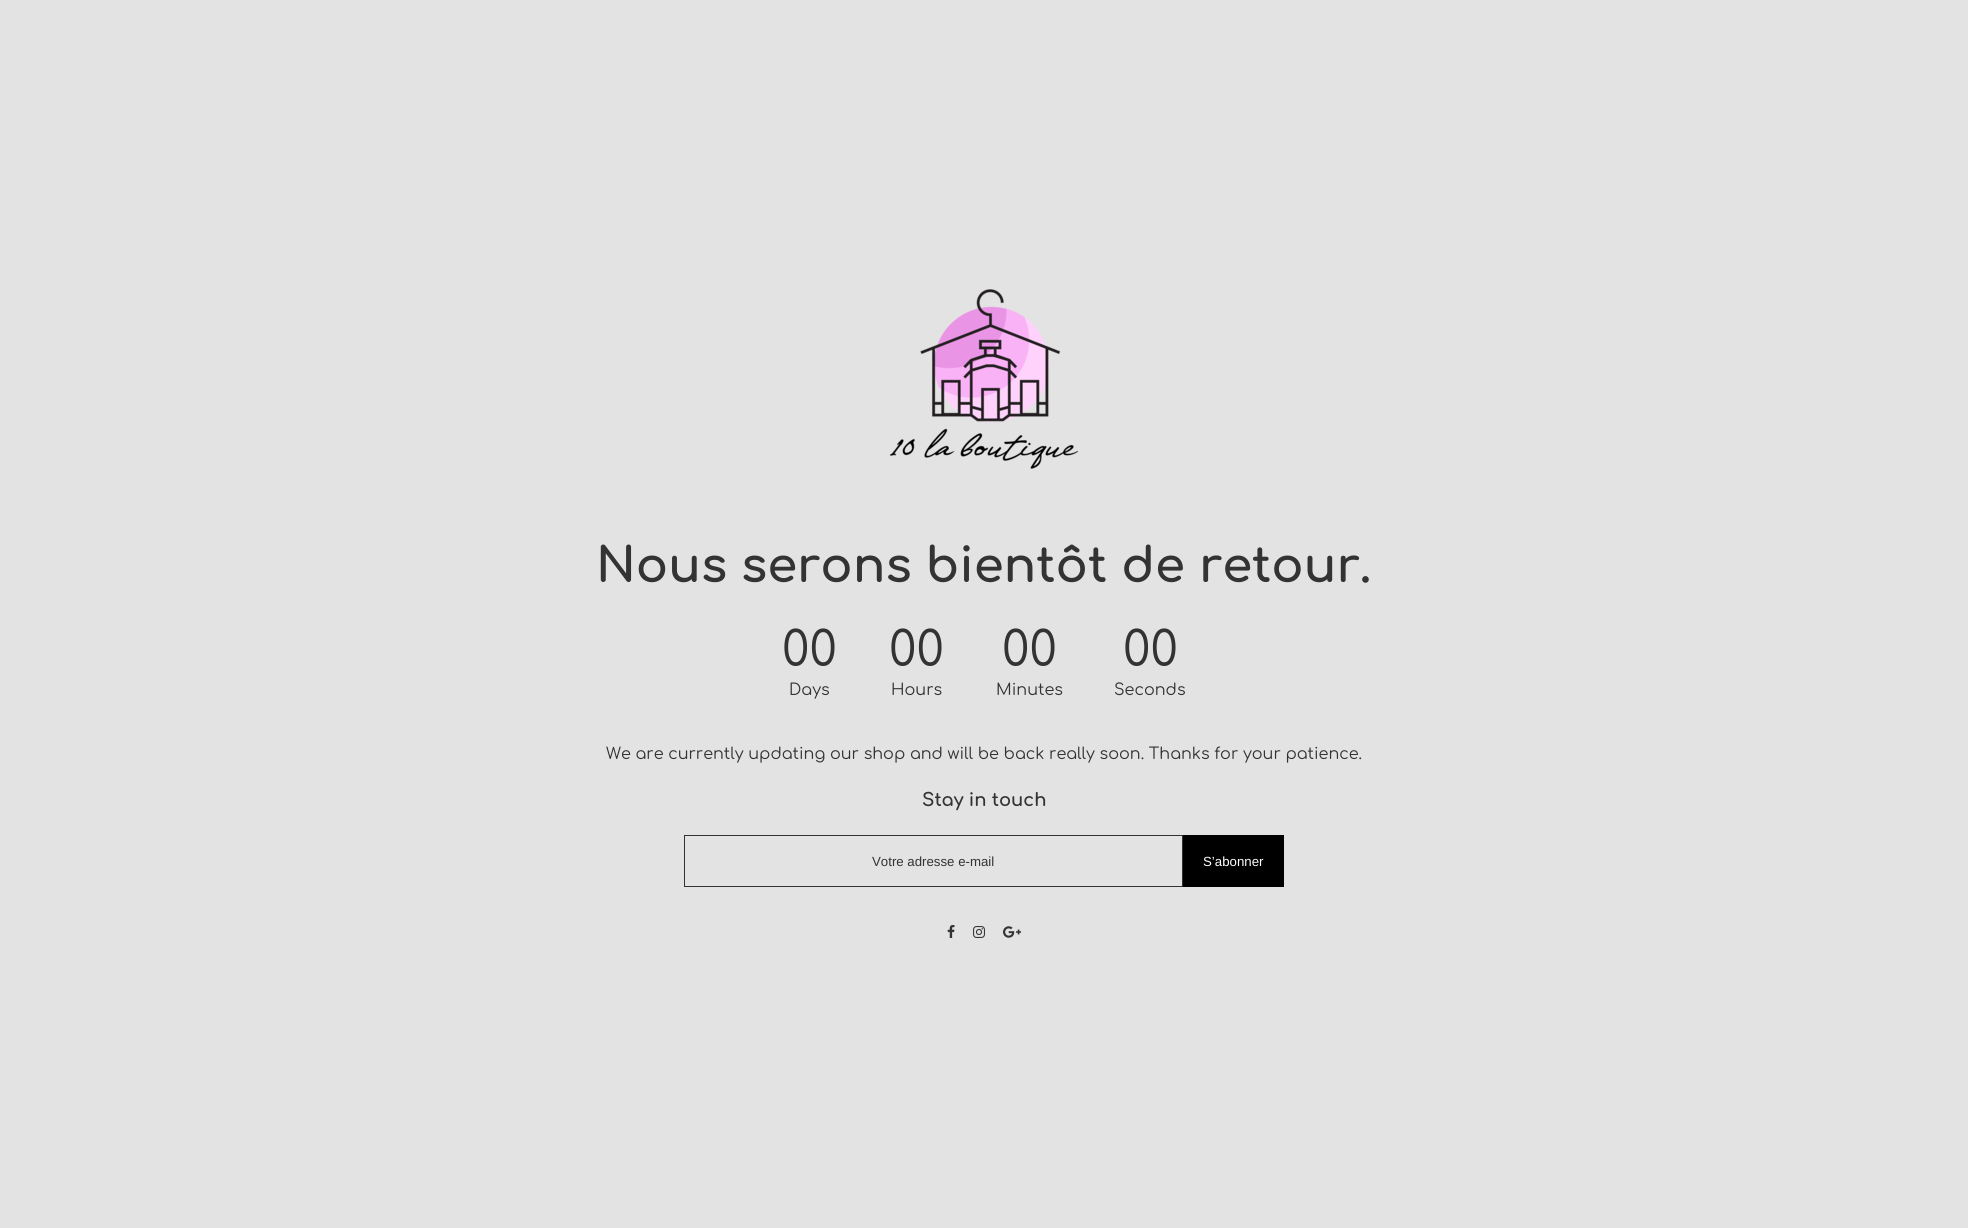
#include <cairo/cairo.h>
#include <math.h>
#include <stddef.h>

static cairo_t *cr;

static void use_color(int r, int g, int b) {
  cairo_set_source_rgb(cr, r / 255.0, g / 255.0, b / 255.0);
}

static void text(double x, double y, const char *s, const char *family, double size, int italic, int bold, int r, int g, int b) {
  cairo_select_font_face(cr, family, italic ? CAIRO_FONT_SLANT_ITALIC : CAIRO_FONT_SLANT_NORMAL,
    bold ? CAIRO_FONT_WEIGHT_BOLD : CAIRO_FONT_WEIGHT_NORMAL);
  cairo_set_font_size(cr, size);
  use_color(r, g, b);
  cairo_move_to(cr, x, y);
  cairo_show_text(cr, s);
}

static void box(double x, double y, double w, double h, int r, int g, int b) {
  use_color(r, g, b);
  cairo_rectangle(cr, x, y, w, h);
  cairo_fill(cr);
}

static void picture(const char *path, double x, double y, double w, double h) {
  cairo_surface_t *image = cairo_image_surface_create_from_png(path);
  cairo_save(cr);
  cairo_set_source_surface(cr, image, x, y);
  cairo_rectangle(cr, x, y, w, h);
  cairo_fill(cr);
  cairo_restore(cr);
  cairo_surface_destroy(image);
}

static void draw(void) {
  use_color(227, 227, 227);
  cairo_paint(cr);
  picture("img_01.png", 889, 289, 190, 180);
  cairo_rectangle(cr, 684.5, 835.5, 498, 51);
  use_color(51, 51, 51);
  cairo_set_line_width(cr, 1);
  cairo_stroke(cr);
  box(1183, 835, 101, 52, 0, 0, 0);
  picture("img_02.png", 947, 925, 8, 13);
  picture("img_03.png", 973, 926, 12, 12);
  picture("img_04.png", 1003, 926, 18, 12);
  text(596, 582, "Nous serons bientôt de retour.", "Comfortaa", 48, 0, 1, 51, 51, 51);
  text(782, 666, "00", "Comfortaa", 48, 0, 0, 51, 51, 51);
  text(789, 695, "Days", "Comfortaa", 16, 0, 0, 51, 51, 51);
  text(889, 666, "00", "Comfortaa", 48, 0, 0, 51, 51, 51);
  text(891, 695, "Hours", "Comfortaa", 16, 0, 0, 51, 51, 51);
  text(1002, 666, "00", "Comfortaa", 48, 0, 0, 51, 51, 51);
  text(996, 695, "Minutes", "Comfortaa", 16, 0, 0, 51, 51, 51);
  text(1123, 666, "00", "Comfortaa", 48, 0, 0, 51, 51, 51);
  text(1114, 695, "Seconds", "Comfortaa", 16, 0, 0, 51, 51, 51);
  text(606, 759, "We are currently updating our shop and will be back really soon. Thanks for your patience.", "Comfortaa", 16, 0, 0, 51, 51, 51);
  text(922, 806, "Stay in touch", "Comfortaa", 18, 0, 1, 51, 51, 51);
  text(872, 866, "Votre adresse e-mail", "Liberation Sans", 13.25, 0, 0, 51, 51, 51);
  text(1203, 866, "S’abonner", "Liberation Sans", 13.25, 0, 0, 255, 255, 255);
}

int main(void) {
  cairo_surface_t *surface = cairo_image_surface_create(CAIRO_FORMAT_RGB24, 1968, 1228);
  cr = cairo_create(surface);
  cairo_font_options_t *options = cairo_font_options_create();
  cairo_font_options_set_hint_metrics(options, CAIRO_HINT_METRICS_OFF);
  cairo_font_options_set_hint_style(options, CAIRO_HINT_STYLE_NONE);
  cairo_set_font_options(cr, options);
  cairo_set_miter_limit(cr, 4);
  draw();
  cairo_surface_write_to_png(surface, "out.png");
  cairo_font_options_destroy(options);
  cairo_destroy(cr);
  cairo_surface_destroy(surface);
  return 0;
}
